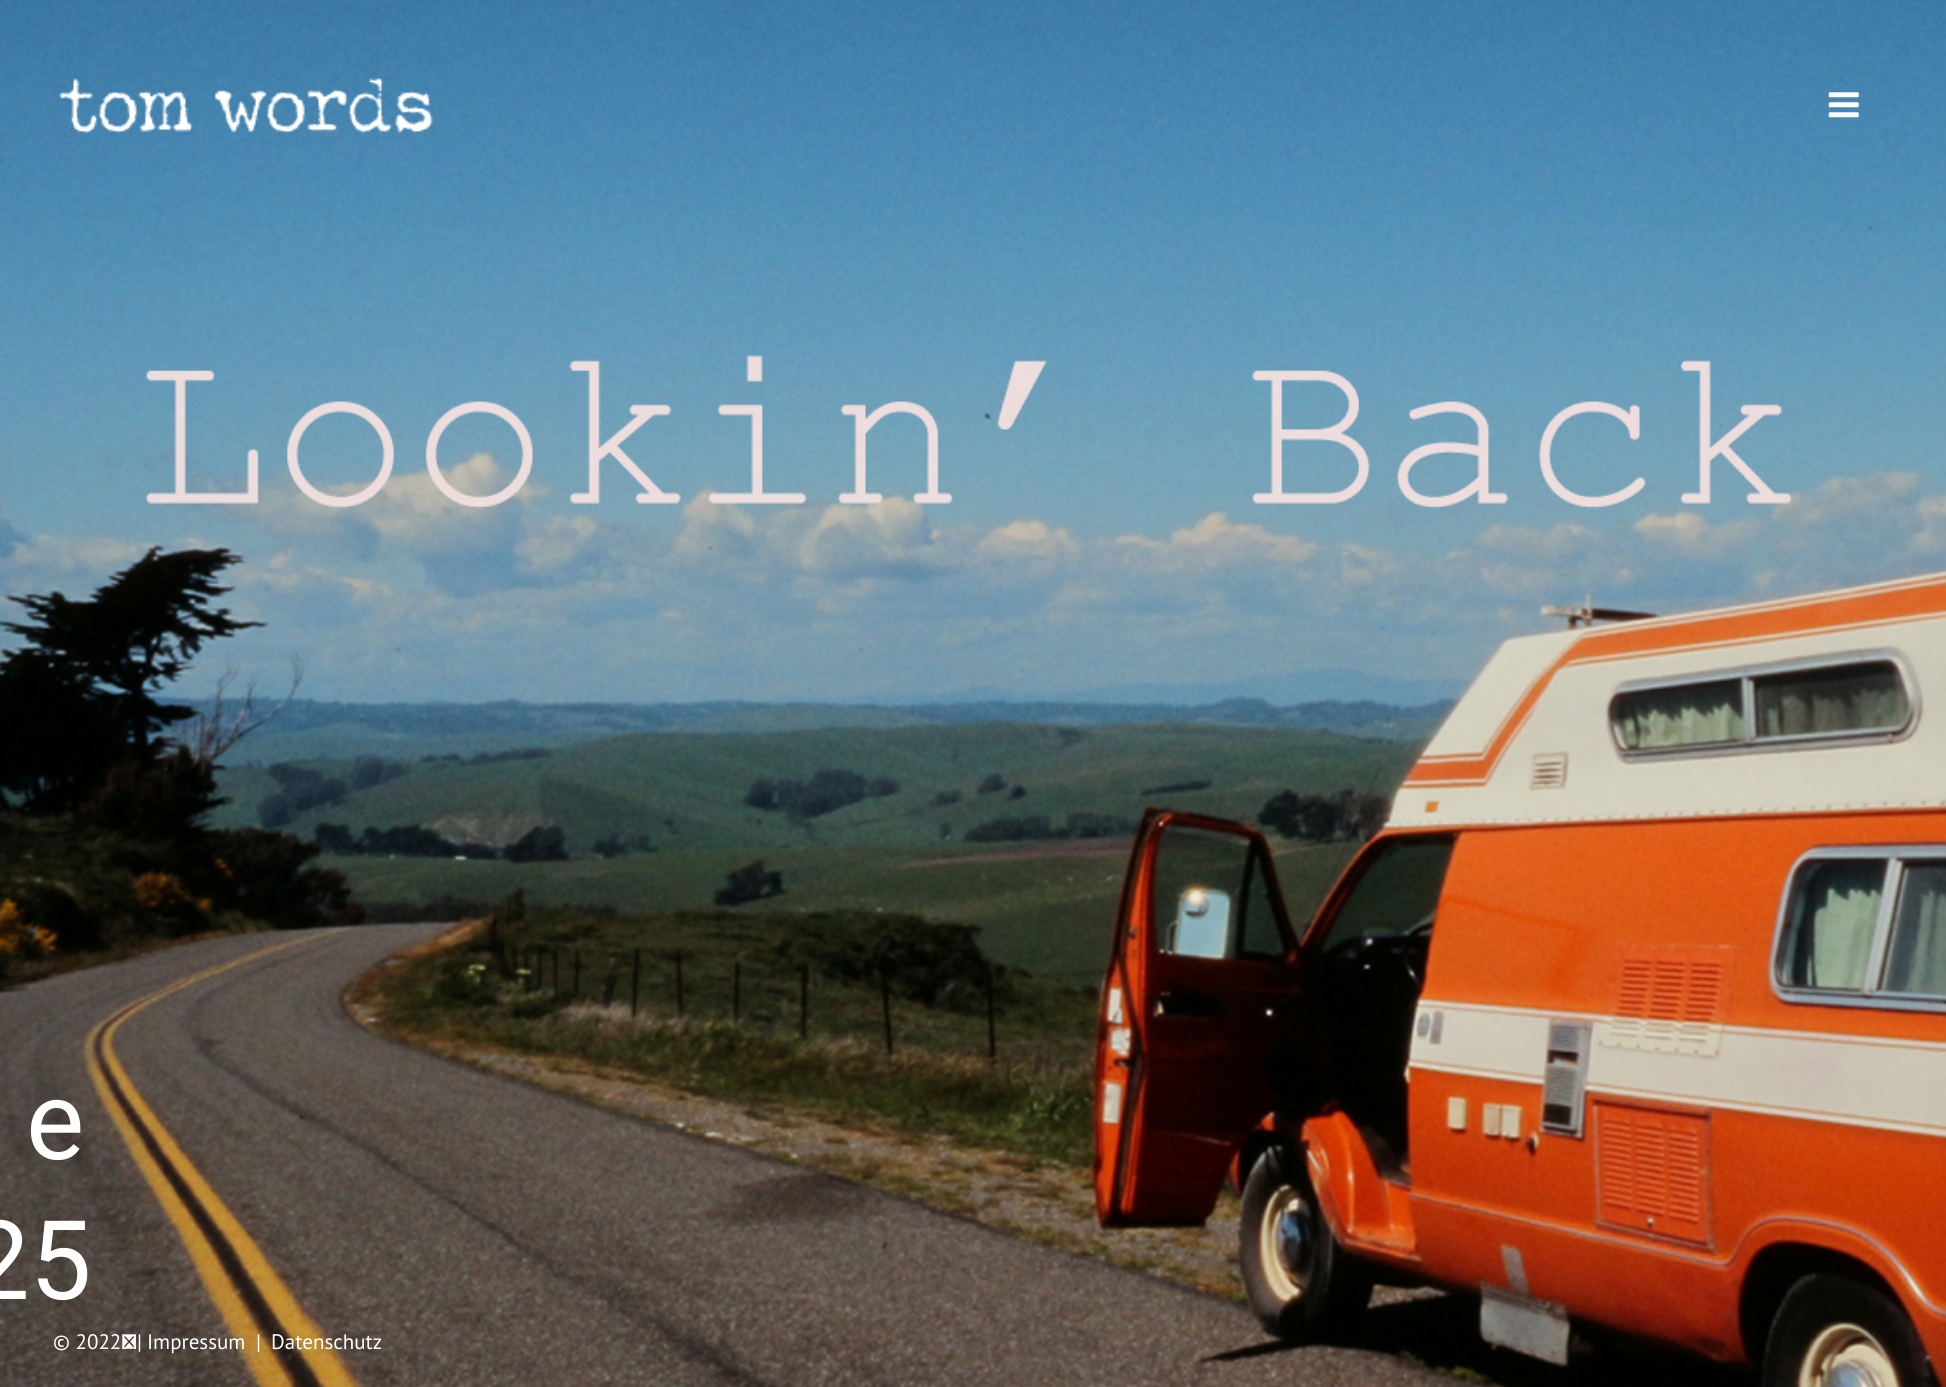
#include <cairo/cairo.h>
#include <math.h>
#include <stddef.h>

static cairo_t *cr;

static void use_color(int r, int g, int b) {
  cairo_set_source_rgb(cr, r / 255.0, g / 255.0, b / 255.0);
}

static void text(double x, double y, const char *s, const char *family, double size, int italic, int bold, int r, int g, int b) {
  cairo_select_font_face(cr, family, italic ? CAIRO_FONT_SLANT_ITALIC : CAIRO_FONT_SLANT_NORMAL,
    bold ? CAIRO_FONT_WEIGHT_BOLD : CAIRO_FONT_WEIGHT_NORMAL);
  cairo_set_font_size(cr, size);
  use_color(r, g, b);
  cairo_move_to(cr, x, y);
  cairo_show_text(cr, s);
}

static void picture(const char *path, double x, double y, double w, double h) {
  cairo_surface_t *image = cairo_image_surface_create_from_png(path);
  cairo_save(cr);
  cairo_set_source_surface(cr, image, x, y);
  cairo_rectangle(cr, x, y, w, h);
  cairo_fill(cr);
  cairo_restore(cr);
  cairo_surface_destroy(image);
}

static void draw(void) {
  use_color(255, 255, 255);
  cairo_paint(cr);
  picture("img_03.png", 0, 0, 1946, 1387);
  picture("img_01.png", 1828, 92, 31, 26);
  picture("img_02.png", 59, 77, 374, 57);
  text(26, 1159, "e", "Roboto", 110, 0, 0, 255, 255, 255);
  text(-32, 1299, "25", "Roboto", 110, 0, 0, 255, 255, 255);
  text(53, 1349, "© 2022 |", "PT Sans", 21, 0, 0, 255, 255, 255);
  text(147, 1349, "Impressum", "PT Sans", 21, 0, 0, 255, 255, 255);
  text(256, 1349, "|", "PT Sans", 21, 0, 0, 255, 255, 255);
  text(271, 1349, "Datenschutz", "PT Sans", 21, 0, 0, 255, 255, 255);
}

int main(void) {
  cairo_surface_t *surface = cairo_image_surface_create(CAIRO_FORMAT_RGB24, 1946, 1387);
  cr = cairo_create(surface);
  cairo_font_options_t *options = cairo_font_options_create();
  cairo_font_options_set_hint_metrics(options, CAIRO_HINT_METRICS_OFF);
  cairo_font_options_set_hint_style(options, CAIRO_HINT_STYLE_NONE);
  cairo_set_font_options(cr, options);
  cairo_set_miter_limit(cr, 4);
  draw();
  cairo_surface_write_to_png(surface, "out.png");
  cairo_font_options_destroy(options);
  cairo_destroy(cr);
  cairo_surface_destroy(surface);
  return 0;
}
